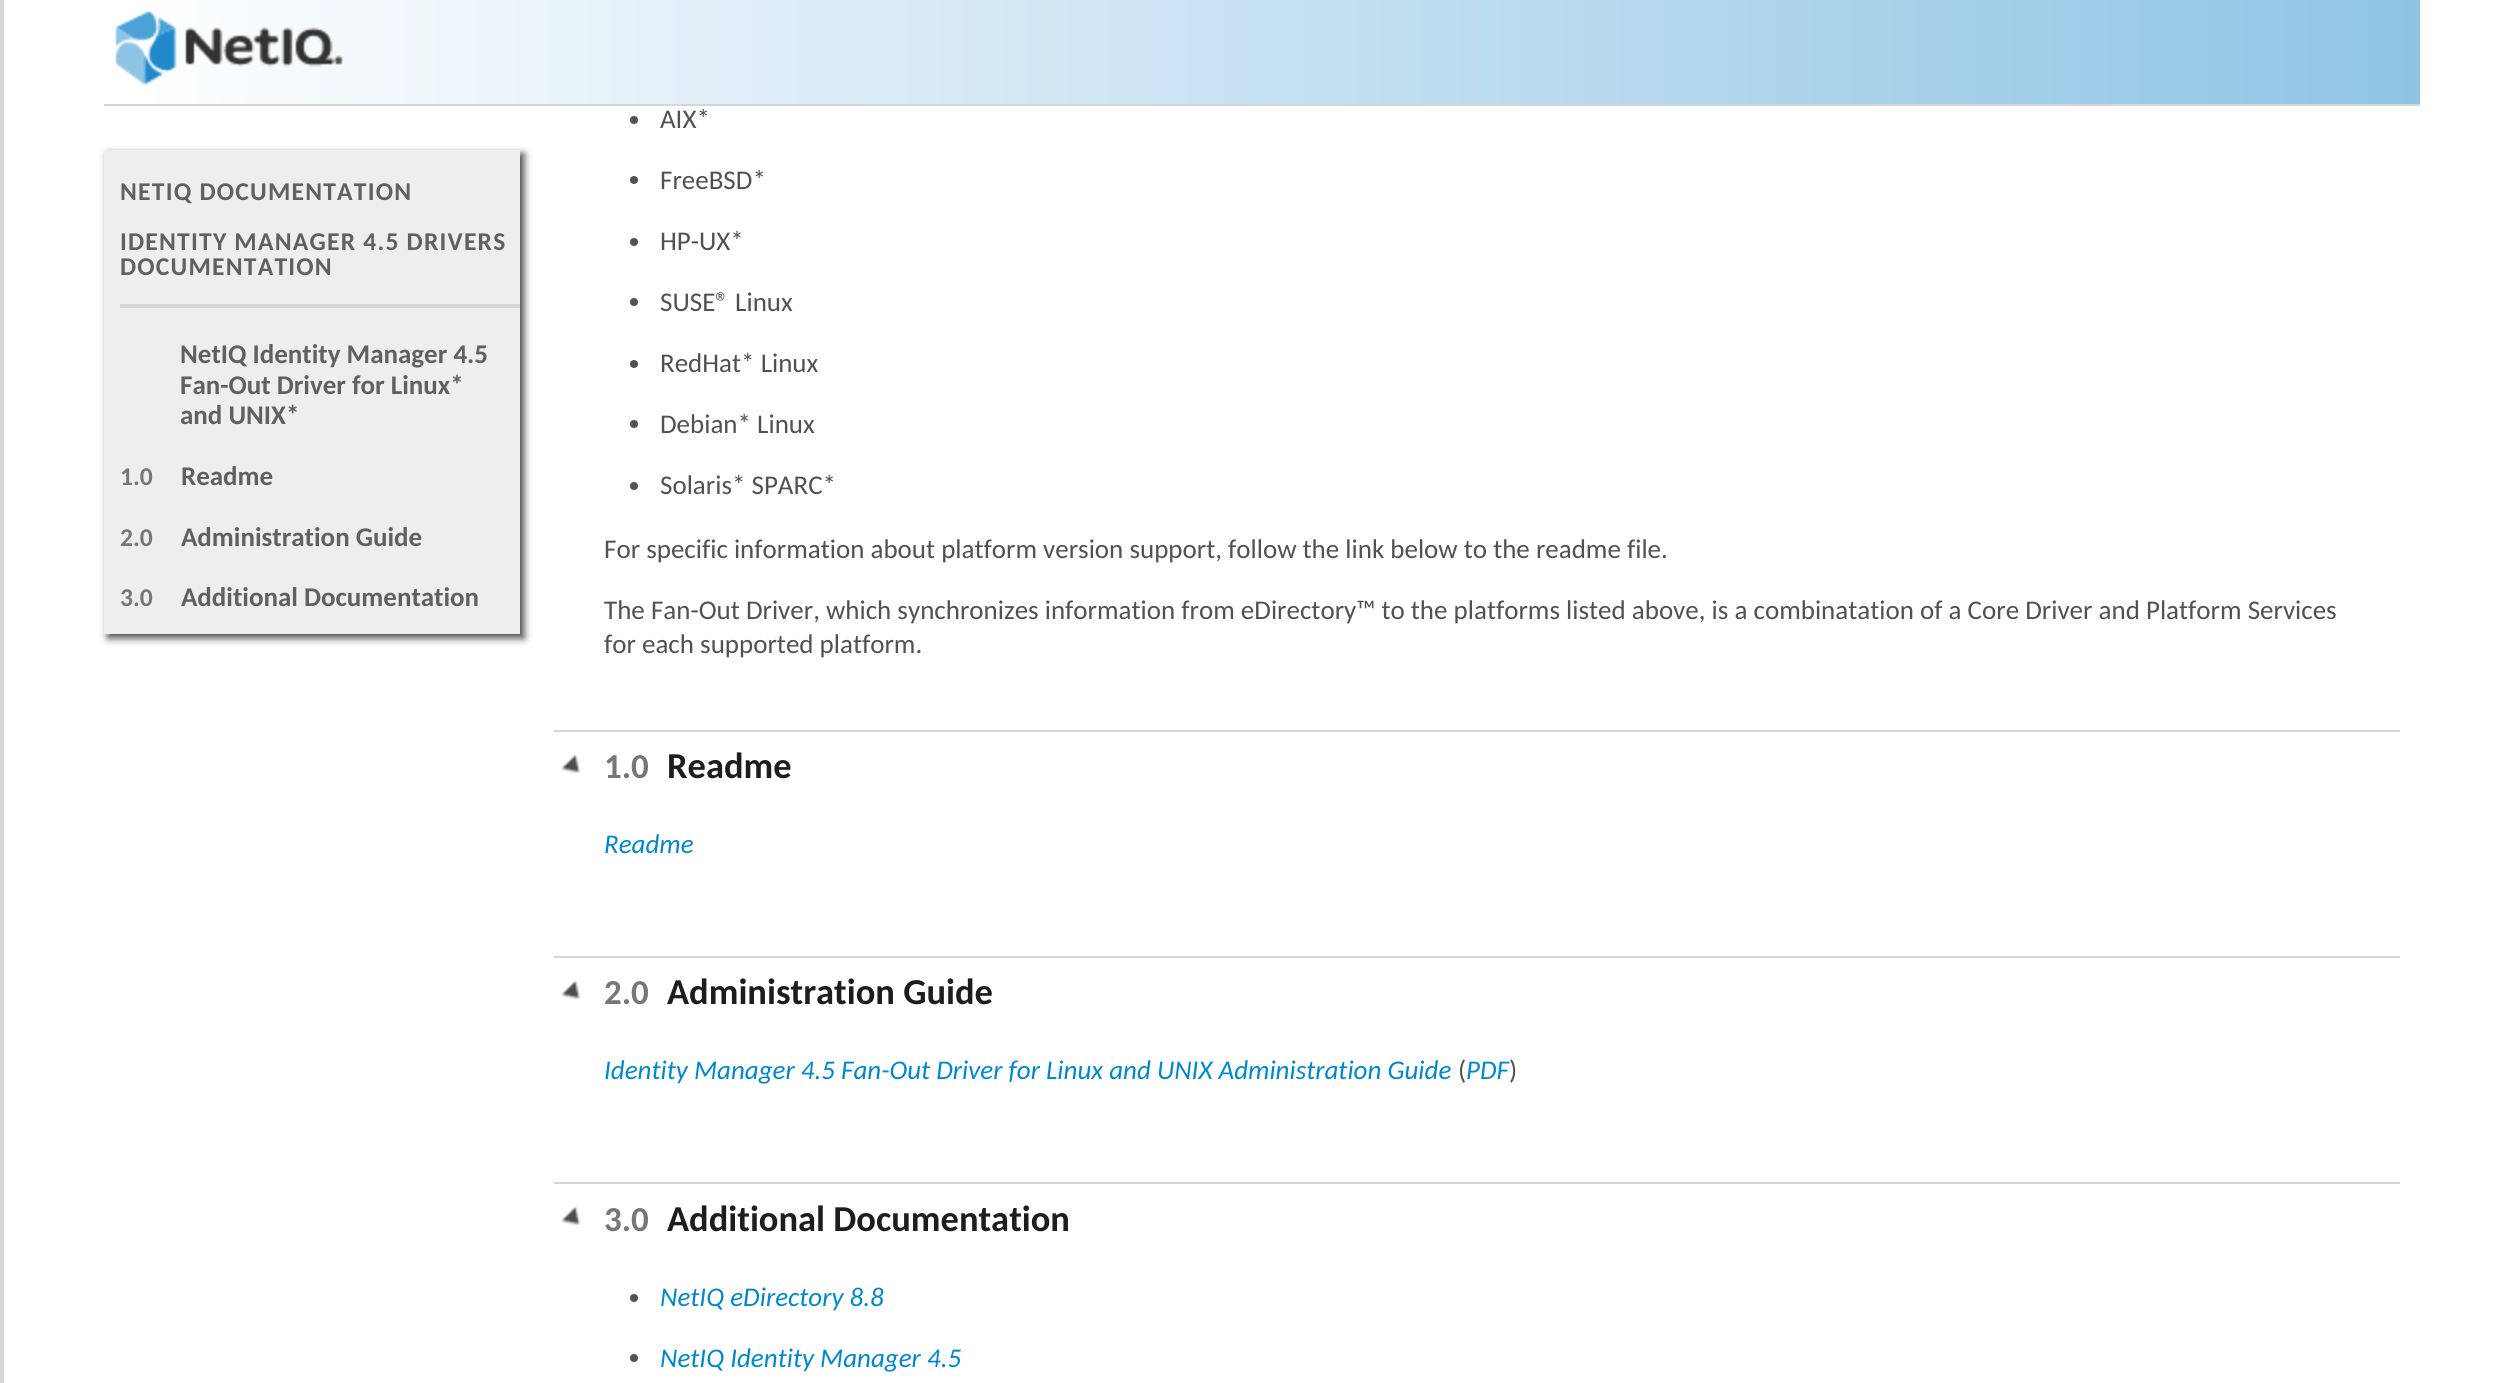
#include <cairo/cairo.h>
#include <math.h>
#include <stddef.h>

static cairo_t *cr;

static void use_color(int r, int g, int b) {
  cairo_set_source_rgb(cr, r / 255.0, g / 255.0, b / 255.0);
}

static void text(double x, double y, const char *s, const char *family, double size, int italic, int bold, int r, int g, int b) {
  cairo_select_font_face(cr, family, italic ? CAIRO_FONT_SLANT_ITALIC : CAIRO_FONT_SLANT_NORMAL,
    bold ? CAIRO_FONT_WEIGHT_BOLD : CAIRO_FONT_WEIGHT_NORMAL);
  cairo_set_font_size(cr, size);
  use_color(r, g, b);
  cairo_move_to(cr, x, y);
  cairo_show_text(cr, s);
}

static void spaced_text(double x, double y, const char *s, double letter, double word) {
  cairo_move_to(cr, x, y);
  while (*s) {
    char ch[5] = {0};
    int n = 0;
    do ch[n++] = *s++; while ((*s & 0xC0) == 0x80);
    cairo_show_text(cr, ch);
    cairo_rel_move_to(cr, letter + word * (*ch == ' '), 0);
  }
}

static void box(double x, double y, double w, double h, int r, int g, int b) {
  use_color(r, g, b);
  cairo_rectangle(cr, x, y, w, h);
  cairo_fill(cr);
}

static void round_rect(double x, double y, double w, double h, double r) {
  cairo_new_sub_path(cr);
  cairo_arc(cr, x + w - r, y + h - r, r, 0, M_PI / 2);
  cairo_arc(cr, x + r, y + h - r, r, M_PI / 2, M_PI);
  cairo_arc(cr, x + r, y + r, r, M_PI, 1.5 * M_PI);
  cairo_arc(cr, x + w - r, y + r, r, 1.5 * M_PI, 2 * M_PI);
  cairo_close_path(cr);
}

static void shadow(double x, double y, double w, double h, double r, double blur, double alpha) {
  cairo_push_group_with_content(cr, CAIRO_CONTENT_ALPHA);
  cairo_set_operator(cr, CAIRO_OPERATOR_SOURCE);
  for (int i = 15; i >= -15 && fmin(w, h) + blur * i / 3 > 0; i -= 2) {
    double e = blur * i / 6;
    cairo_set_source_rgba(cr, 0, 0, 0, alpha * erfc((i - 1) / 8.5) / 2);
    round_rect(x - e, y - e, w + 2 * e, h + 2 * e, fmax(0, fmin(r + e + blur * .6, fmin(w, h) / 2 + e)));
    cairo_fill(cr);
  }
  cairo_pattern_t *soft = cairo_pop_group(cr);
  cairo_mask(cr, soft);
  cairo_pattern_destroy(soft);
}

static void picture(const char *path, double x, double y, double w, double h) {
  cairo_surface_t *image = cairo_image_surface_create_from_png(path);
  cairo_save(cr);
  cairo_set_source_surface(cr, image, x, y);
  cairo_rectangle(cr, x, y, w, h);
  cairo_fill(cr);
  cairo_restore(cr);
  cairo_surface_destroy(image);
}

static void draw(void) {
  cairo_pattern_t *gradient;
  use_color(255, 255, 255);
  cairo_paint(cr);
  box(0, 0, 4, 1383, 214, 216, 214);
  gradient = cairo_pattern_create_linear(2420, 52, 104, 52);
  cairo_pattern_add_color_stop_rgba(gradient, 0, 0.561, 0.769, 0.898, 1);
  cairo_pattern_add_color_stop_rgba(gradient, 1, 1, 1, 1, 1);
  cairo_set_source(cr, gradient);
  cairo_pattern_destroy(gradient);
  cairo_rectangle(cr, 156, 0, 2264, 104);
  cairo_fill(cr);
  box(104, 104, 2316, 2, 214, 216, 214);
  picture("img_01.png", 115, 11, 228, 74);
  use_color(68, 68, 68);
  shadow(108, 154, 416, 484, 0, 4, 1);
  box(104, 150, 416, 484, 238, 238, 238);
  box(120, 304, 400, 4, 214, 216, 214);
  use_color(81, 81, 81);
  cairo_arc(cr, 634, 120, 4, 0, 2 * M_PI);
  cairo_fill(cr);
  cairo_arc(cr, 634, 180, 4, 0, 2 * M_PI);
  cairo_fill(cr);
  cairo_arc(cr, 634, 242, 4, 0, 2 * M_PI);
  cairo_fill(cr);
  cairo_arc(cr, 634, 302, 4, 0, 2 * M_PI);
  cairo_fill(cr);
  cairo_arc(cr, 634, 364, 4, 0, 2 * M_PI);
  cairo_fill(cr);
  cairo_arc(cr, 634, 424, 4, 0, 2 * M_PI);
  cairo_fill(cr);
  cairo_arc(cr, 634, 486, 4, 0, 2 * M_PI);
  cairo_fill(cr);
  picture("img_02.png", 561, 754, 20, 20);
  box(554, 730, 1846, 2, 214, 216, 214);
  picture("img_02.png", 561, 980, 20, 20);
  box(554, 956, 1846, 2, 214, 216, 214);
  picture("img_02.png", 561, 1206, 20, 20);
  box(554, 1182, 1846, 2, 214, 216, 214);
  use_color(81, 81, 81);
  cairo_arc(cr, 634, 1298, 4, 0, 2 * M_PI);
  cairo_fill(cr);
  cairo_arc(cr, 634, 1358, 4, 0, 2 * M_PI);
  cairo_fill(cr);
  cairo_select_font_face(cr, "Carlito", CAIRO_FONT_SLANT_NORMAL, CAIRO_FONT_WEIGHT_BOLD);
  cairo_set_font_size(cr, 25.6);
  use_color(96, 96, 96);
  spaced_text(120, 200, "NETIQ DOCUMENTATION", 1.2, 0);
  spaced_text(120, 250, "IDENTITY MANAGER 4.5 DRIVERS", 1.2, 0);
  spaced_text(120, 275, "DOCUMENTATION", 1.2, 0);
  text(180, 363, "NetIQ Identity Manager 4.5", "Carlito", 27, 0, 1, 96, 96, 96);
  text(180, 394, "Fan-Out Driver for Linux*", "Carlito", 27, 0, 1, 96, 96, 96);
  text(180, 424, "and UNIX*", "Carlito", 27, 0, 1, 96, 96, 96);
  text(120, 485, "1.0", "Carlito", 25.6, 0, 1, 119, 119, 119);
  text(181, 485, "Readme", "Carlito", 27, 0, 1, 96, 96, 96);
  text(120, 546, "2.0", "Carlito", 25.6, 0, 1, 119, 119, 119);
  text(181, 546, "Administration Guide", "Carlito", 27, 0, 1, 96, 96, 96);
  text(120, 606, "3.0", "Carlito", 25.6, 0, 1, 119, 119, 119);
  text(181, 606, "Additional Documentation", "Carlito", 27, 0, 1, 96, 96, 96);
  text(660, 128, "AIX*", "Carlito", 27, 0, 0, 81, 81, 81);
  text(660, 189, "FreeBSD*", "Carlito", 27, 0, 0, 81, 81, 81);
  text(660, 250, "HP-UX*", "Carlito", 27, 0, 0, 81, 81, 81);
  text(660, 311, "SUSE® Linux", "Carlito", 27, 0, 0, 81, 81, 81);
  text(660, 372, "RedHat* Linux", "Carlito", 27, 0, 0, 81, 81, 81);
  text(660, 433, "Debian* Linux", "Carlito", 27, 0, 0, 81, 81, 81);
  text(660, 494, "Solaris* SPARC*", "Carlito", 27, 0, 0, 81, 81, 81);
  text(604, 558, "For specific information about platform version support, follow the link below to the readme file.", "Carlito", 27, 0, 0, 81, 81, 81);
  text(604, 619, "The Fan-Out Driver, which synchronizes information from eDirectory™ to the platforms listed above, is a combinatation of a Core Driver and Platform Services", "Carlito", 27, 0, 0, 81, 81, 81);
  text(604, 653, "for each supported platform.", "Carlito", 27, 0, 0, 81, 81, 81);
  text(604, 778, "1.0", "Carlito", 35, 0, 1, 119, 119, 119);
  text(667, 778, "Readme", "Carlito", 36.5, 0, 1, 29, 29, 29);
  text(604, 853, "Readme", "Carlito", 27, 1, 0, 0, 136, 206);
  text(604, 1004, "2.0", "Carlito", 35, 0, 1, 119, 119, 119);
  text(667, 1004, "Administration Guide", "Carlito", 36.5, 0, 1, 29, 29, 29);
  text(604, 1079, "Identity Manager 4.5 Fan-Out Driver for Linux and UNIX Administration Guide", "Carlito", 27, 1, 0, 0, 136, 206);
  text(1458, 1079, "(", "Carlito", 27, 0, 0, 81, 81, 81);
  text(1466, 1079, "PDF", "Carlito", 27, 1, 0, 0, 136, 206);
  text(1509, 1079, ")", "Carlito", 27, 0, 0, 81, 81, 81);
  text(604, 1231, "3.0", "Carlito", 35, 0, 1, 119, 119, 119);
  text(667, 1231, "Additional Documentation", "Carlito", 36.5, 0, 1, 29, 29, 29);
  text(660, 1306, "NetIQ eDirectory 8.8", "Carlito", 27, 1, 0, 0, 136, 206);
  text(660, 1367, "NetIQ Identity Manager 4.5", "Carlito", 27, 1, 0, 0, 136, 206);
}

int main(void) {
  cairo_surface_t *surface = cairo_image_surface_create(CAIRO_FORMAT_RGB24, 2515, 1383);
  cr = cairo_create(surface);
  cairo_font_options_t *options = cairo_font_options_create();
  cairo_font_options_set_hint_metrics(options, CAIRO_HINT_METRICS_OFF);
  cairo_font_options_set_hint_style(options, CAIRO_HINT_STYLE_NONE);
  cairo_set_font_options(cr, options);
  cairo_set_miter_limit(cr, 4);
  draw();
  cairo_surface_write_to_png(surface, "out.png");
  cairo_font_options_destroy(options);
  cairo_destroy(cr);
  cairo_surface_destroy(surface);
  return 0;
}
